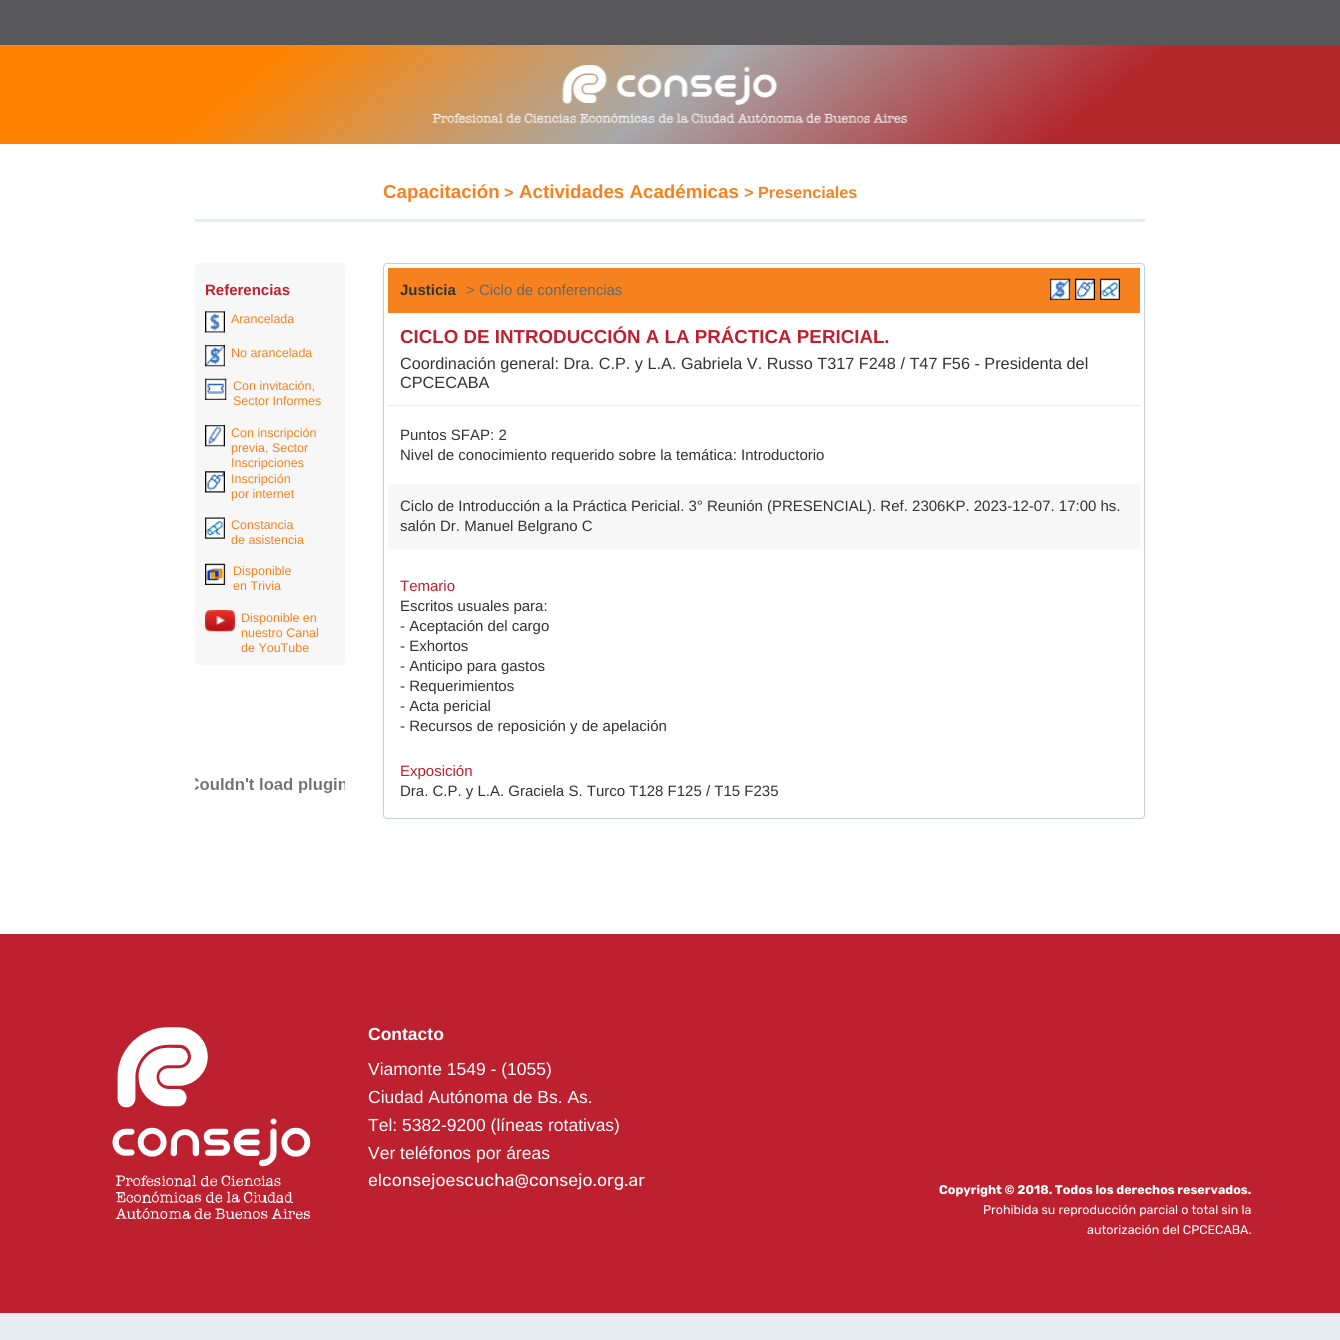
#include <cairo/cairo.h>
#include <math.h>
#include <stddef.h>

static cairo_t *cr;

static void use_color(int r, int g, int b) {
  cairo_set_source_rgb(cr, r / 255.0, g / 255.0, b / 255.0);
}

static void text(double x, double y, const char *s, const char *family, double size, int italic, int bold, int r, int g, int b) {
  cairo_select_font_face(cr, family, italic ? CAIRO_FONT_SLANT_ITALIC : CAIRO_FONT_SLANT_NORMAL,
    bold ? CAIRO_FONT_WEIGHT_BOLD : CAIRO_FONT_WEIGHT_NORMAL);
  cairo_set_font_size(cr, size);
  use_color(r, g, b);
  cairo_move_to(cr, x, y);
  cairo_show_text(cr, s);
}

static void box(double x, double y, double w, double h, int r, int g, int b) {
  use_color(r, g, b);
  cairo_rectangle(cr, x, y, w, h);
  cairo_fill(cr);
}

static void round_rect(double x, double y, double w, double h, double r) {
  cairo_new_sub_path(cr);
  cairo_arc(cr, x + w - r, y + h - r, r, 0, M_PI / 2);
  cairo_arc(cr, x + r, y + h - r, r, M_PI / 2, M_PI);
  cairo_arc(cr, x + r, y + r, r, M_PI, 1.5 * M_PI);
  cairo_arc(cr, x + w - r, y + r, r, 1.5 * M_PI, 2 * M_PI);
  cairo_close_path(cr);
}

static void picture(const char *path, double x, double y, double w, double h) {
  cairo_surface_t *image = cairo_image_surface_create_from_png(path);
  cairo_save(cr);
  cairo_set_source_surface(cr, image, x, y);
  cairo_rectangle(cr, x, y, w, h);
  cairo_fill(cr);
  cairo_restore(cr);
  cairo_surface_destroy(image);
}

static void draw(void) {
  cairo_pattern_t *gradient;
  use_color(231, 235, 242);
  cairo_paint(cr);
  box(0, 144, 1340, 790, 255, 255, 255);
  box(0, 0, 1340, 45, 88, 88, 91);
  gradient = cairo_pattern_create_linear(381, -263, 959, 452);
  cairo_pattern_add_color_stop_rgba(gradient, 0.2, 1, 0.514, 0, 1);
  cairo_pattern_add_color_stop_rgba(gradient, 0.5, 0.655, 0.663, 0.671, 1);
  cairo_pattern_add_color_stop_rgba(gradient, 0.8, 0.702, 0.153, 0.176, 1);
  cairo_set_source(cr, gradient);
  cairo_pattern_destroy(gradient);
  cairo_rectangle(cr, 0, 45, 1340, 99);
  cairo_fill(cr);
  picture("img_01.png", 432, 65, 476, 58);
  box(195, 219, 950, 3, 231, 235, 242);
  use_color(247, 247, 247);
  round_rect(195, 263, 150, 402, 4);
  cairo_fill(cr);
  picture("img_02.png", 205, 311, 20, 22);
  picture("img_03.png", 205, 345, 20, 22);
  picture("img_04.png", 205, 378, 22, 22);
  picture("img_05.png", 205, 425, 20, 22);
  picture("img_06.png", 205, 471, 20, 22);
  picture("img_07.png", 205, 517, 20, 22);
  picture("img_08.png", 205, 563, 21, 22);
  picture("img_09.png", 205, 610, 30, 22);
  picture("img_10.png", 195, 778, 150, 15);
  round_rect(383.5, 263.5, 761, 555, 3.5);
  use_color(200, 209, 226);
  cairo_set_line_width(cr, 1);
  cairo_stroke(cr);
  box(388, 268, 752, 45, 245, 130, 31);
  picture("img_11.png", 1050, 278, 20, 22);
  picture("img_12.png", 1075, 278, 20, 22);
  picture("img_13.png", 1100, 278, 20, 22);
  box(388, 405, 752, 1, 231, 235, 242);
  box(388, 484, 752, 65, 247, 247, 247);
  box(0, 934, 1340, 379, 189, 32, 46);
  picture("img_14.png", 112, 1027, 199, 193);
  text(383, 198, "Capacitación", "Liberation Sans", 18.75, 0, 1, 245, 130, 31);
  text(504, 198, ">", "Liberation Sans", 16.25, 0, 1, 245, 130, 31);
  text(519, 198, "Actividades Académicas", "Liberation Sans", 18.75, 0, 1, 245, 130, 31);
  text(744, 198, "> Presenciales", "Liberation Sans", 16.25, 0, 1, 245, 130, 31);
  text(205, 295, "Referencias", "Liberation Sans", 15, 0, 1, 189, 32, 46);
  text(231, 323, "Arancelada", "Liberation Sans", 12.5, 0, 0, 245, 130, 31);
  text(231, 357, "No arancelada", "Liberation Sans", 12.5, 0, 0, 245, 130, 31);
  text(233, 390, "Con invitación,", "Liberation Sans", 12.5, 0, 0, 245, 130, 31);
  text(233, 405, "Sector Informes", "Liberation Sans", 12.5, 0, 0, 245, 130, 31);
  text(231, 437, "Con inscripción", "Liberation Sans", 12.5, 0, 0, 245, 130, 31);
  text(231, 452, "previa, Sector", "Liberation Sans", 12.5, 0, 0, 245, 130, 31);
  text(231, 467, "Inscripciones", "Liberation Sans", 12.5, 0, 0, 245, 130, 31);
  text(231, 483, "Inscripción", "Liberation Sans", 12.5, 0, 0, 245, 130, 31);
  text(231, 498, "por internet", "Liberation Sans", 12.5, 0, 0, 245, 130, 31);
  text(231, 529, "Constancia", "Liberation Sans", 12.5, 0, 0, 245, 130, 31);
  text(231, 544, "de asistencia", "Liberation Sans", 12.5, 0, 0, 245, 130, 31);
  text(233, 575, "Disponible", "Liberation Sans", 12.5, 0, 0, 245, 130, 31);
  text(233, 590, "en Trivia", "Liberation Sans", 12.5, 0, 0, 245, 130, 31);
  text(241, 622, "Disponible en", "Liberation Sans", 12.5, 0, 0, 245, 130, 31);
  text(241, 637, "nuestro Canal", "Liberation Sans", 12.5, 0, 0, 245, 130, 31);
  text(241, 652, "de YouTube", "Liberation Sans", 12.5, 0, 0, 245, 130, 31);
  text(400, 295, "Justicia", "Liberation Sans", 15, 0, 1, 51, 51, 51);
  text(466, 295, "> Ciclo de conferencias", "Liberation Sans", 15, 0, 0, 102, 102, 102);
  text(400, 343, "CICLO DE INTRODUCCIÓN A LA PRÁCTICA PERICIAL.", "Liberation Sans", 18.75, 0, 1, 189, 32, 46);
  text(400, 369, "Coordinación general: Dra. C.P. y L.A. Gabriela V. Russo T317 F248 / T47 F56 - Presidenta del", "Liberation Sans", 16.25, 0, 0, 51, 51, 51);
  text(400, 388, "CPCECABA", "Liberation Sans", 16.25, 0, 0, 51, 51, 51);
  text(400, 440, "Puntos SFAP: 2", "Liberation Sans", 15, 0, 0, 51, 51, 51);
  text(400, 460, "Nivel de conocimiento requerido sobre la temática: Introductorio", "Liberation Sans", 15, 0, 0, 51, 51, 51);
  text(400, 511, "Ciclo de Introducción a la Práctica Pericial. 3° Reunión (PRESENCIAL). Ref. 2306KP. 2023-12-07. 17:00 hs.", "Liberation Sans", 15, 0, 0, 51, 51, 51);
  text(400, 531, "salón Dr. Manuel Belgrano C", "Liberation Sans", 15, 0, 0, 51, 51, 51);
  text(400, 591, "Temario", "Liberation Sans", 15, 0, 0, 189, 32, 46);
  text(400, 611, "Escritos usuales para:", "Liberation Sans", 15, 0, 0, 51, 51, 51);
  text(400, 631, "- Aceptación del cargo", "Liberation Sans", 15, 0, 0, 51, 51, 51);
  text(400, 651, "- Exhortos", "Liberation Sans", 15, 0, 0, 51, 51, 51);
  text(400, 671, "- Anticipo para gastos", "Liberation Sans", 15, 0, 0, 51, 51, 51);
  text(400, 691, "- Requerimientos", "Liberation Sans", 15, 0, 0, 51, 51, 51);
  text(400, 711, "- Acta pericial", "Liberation Sans", 15, 0, 0, 51, 51, 51);
  text(400, 731, "- Recursos de reposición y de apelación", "Liberation Sans", 15, 0, 0, 51, 51, 51);
  text(400, 776, "Exposición", "Liberation Sans", 15, 0, 0, 189, 32, 46);
  text(400, 796, "Dra. C.P. y L.A. Graciela S. Turco T128 F125 / T15 F235", "Liberation Sans", 15, 0, 0, 51, 51, 51);
  text(368, 1040, "Contacto", "Liberation Sans", 17.5, 0, 1, 255, 255, 255);
  text(368, 1075, "Viamonte 1549 - (1055)", "Liberation Sans", 17.5, 0, 0, 255, 255, 255);
  text(368, 1103, "Ciudad Autónoma de Bs. As.", "Liberation Sans", 17.5, 0, 0, 255, 255, 255);
  text(368, 1131, "Tel: 5382-9200 (líneas rotativas)", "Liberation Sans", 17.5, 0, 0, 255, 255, 255);
  text(368, 1159, "Ver teléfonos por áreas", "Liberation Sans", 17.5, 0, 0, 255, 255, 255);
  text(368, 1186, "elconsejoescucha@consejo.org.ar", "Rubik", 17.5, 0, 0, 255, 255, 255);
  text(939, 1194, "Copyright © 2018. Todos los derechos reservados.", "Rubik", 12.5, 0, 1, 255, 255, 255);
  text(983, 1214, "Prohibida su reproducción parcial o total sin la", "Rubik", 12.5, 0, 0, 255, 255, 255);
  text(1087, 1234, "autorización del CPCECABA.", "Rubik", 12.5, 0, 0, 255, 255, 255);
}

int main(void) {
  cairo_surface_t *surface = cairo_image_surface_create(CAIRO_FORMAT_RGB24, 1340, 1340);
  cr = cairo_create(surface);
  cairo_font_options_t *options = cairo_font_options_create();
  cairo_font_options_set_hint_metrics(options, CAIRO_HINT_METRICS_OFF);
  cairo_font_options_set_hint_style(options, CAIRO_HINT_STYLE_NONE);
  cairo_set_font_options(cr, options);
  cairo_set_miter_limit(cr, 4);
  draw();
  cairo_surface_write_to_png(surface, "out.png");
  cairo_font_options_destroy(options);
  cairo_destroy(cr);
  cairo_surface_destroy(surface);
  return 0;
}
